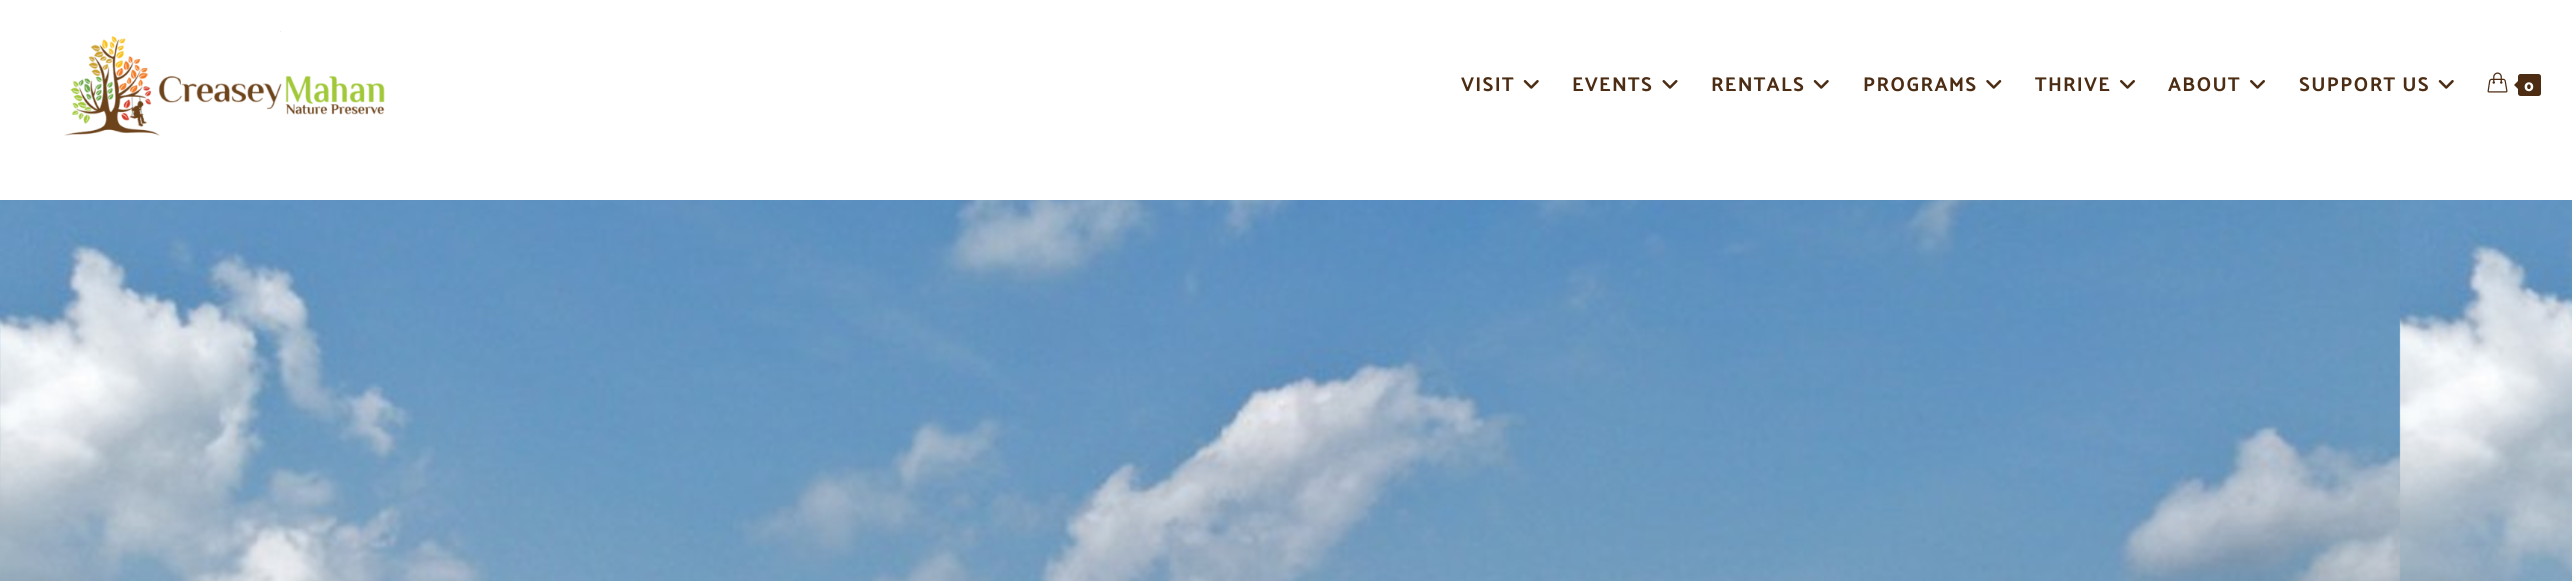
#include <cairo/cairo.h>
#include <math.h>
#include <stddef.h>

static cairo_t *cr;

static void use_color(int r, int g, int b) {
  cairo_set_source_rgb(cr, r / 255.0, g / 255.0, b / 255.0);
}

static void spaced_text(double x, double y, const char *s, double letter, double word) {
  cairo_move_to(cr, x, y);
  while (*s) {
    char ch[5] = {0};
    int n = 0;
    do ch[n++] = *s++; while ((*s & 0xC0) == 0x80);
    cairo_show_text(cr, ch);
    cairo_rel_move_to(cr, letter + word * (*ch == ' '), 0);
  }
}

static void round_rect(double x, double y, double w, double h, double r) {
  cairo_new_sub_path(cr);
  cairo_arc(cr, x + w - r, y + h - r, r, 0, M_PI / 2);
  cairo_arc(cr, x + r, y + h - r, r, M_PI / 2, M_PI);
  cairo_arc(cr, x + r, y + r, r, M_PI, 1.5 * M_PI);
  cairo_arc(cr, x + w - r, y + r, r, 1.5 * M_PI, 2 * M_PI);
  cairo_close_path(cr);
}

static void picture(const char *path, double x, double y, double w, double h) {
  cairo_surface_t *image = cairo_image_surface_create_from_png(path);
  cairo_save(cr);
  cairo_set_source_surface(cr, image, x, y);
  cairo_rectangle(cr, x, y, w, h);
  cairo_fill(cr);
  cairo_restore(cr);
  cairo_surface_destroy(image);
}

static void draw(void) {
  use_color(255, 255, 255);
  cairo_paint(cr);
  picture("img_01.png", 64, 31, 321, 105);
  picture("img_02.png", 1523, 80, 16, 9);
  picture("img_03.png", 1662, 80, 16, 9);
  picture("img_02.png", 1813, 80, 16, 9);
  picture("img_04.png", 1986, 80, 16, 9);
  picture("img_05.png", 2120, 80, 15, 9);
  picture("img_05.png", 2250, 80, 15, 9);
  picture("img_02.png", 2438, 80, 16, 9);
  picture("img_06.png", 2487, 72, 21, 21);
  use_color(76, 45, 20);
  round_rect(2518, 74, 23, 22, 2.5);
  cairo_fill(cr);
  cairo_new_path(cr);
  cairo_move_to(cr, 2520, 79);
  cairo_line_to(cr, 2520, 91);
  cairo_line_to(cr, 2514, 85);
  cairo_close_path(cr);
  cairo_fill(cr);
  picture("img_07.png", 0, 200, 2572, 381);
  cairo_select_font_face(cr, "Palanquin Dark", CAIRO_FONT_SLANT_NORMAL, CAIRO_FONT_WEIGHT_NORMAL);
  cairo_set_font_size(cr, 20);
  spaced_text(1461, 91, "VISIT", 1.25, 0);
  spaced_text(1572, 91, "EVENTS", 1.25, 0);
  spaced_text(1711, 91, "RENTALS", 1.25, 0);
  spaced_text(1863, 91, "PROGRAMS", 1.25, 0);
  spaced_text(2035, 91, "THRIVE", 1.25, 0);
  spaced_text(2168, 91, "ABOUT", 1.25, 0);
  spaced_text(2299, 91, "SUPPORT US", 1.25, 0);
  cairo_select_font_face(cr, "Palanquin Dark SemiBold", CAIRO_FONT_SLANT_NORMAL, CAIRO_FONT_WEIGHT_NORMAL);
  cairo_set_font_size(cr, 15);
  use_color(255, 255, 255);
  spaced_text(2524, 91, "0", 1.25, 0);
}

int main(void) {
  cairo_surface_t *surface = cairo_image_surface_create(CAIRO_FORMAT_RGB24, 2572, 581);
  cr = cairo_create(surface);
  cairo_font_options_t *options = cairo_font_options_create();
  cairo_font_options_set_hint_metrics(options, CAIRO_HINT_METRICS_OFF);
  cairo_font_options_set_hint_style(options, CAIRO_HINT_STYLE_NONE);
  cairo_set_font_options(cr, options);
  cairo_set_miter_limit(cr, 4);
  draw();
  cairo_surface_write_to_png(surface, "out.png");
  cairo_font_options_destroy(options);
  cairo_destroy(cr);
  cairo_surface_destroy(surface);
  return 0;
}
